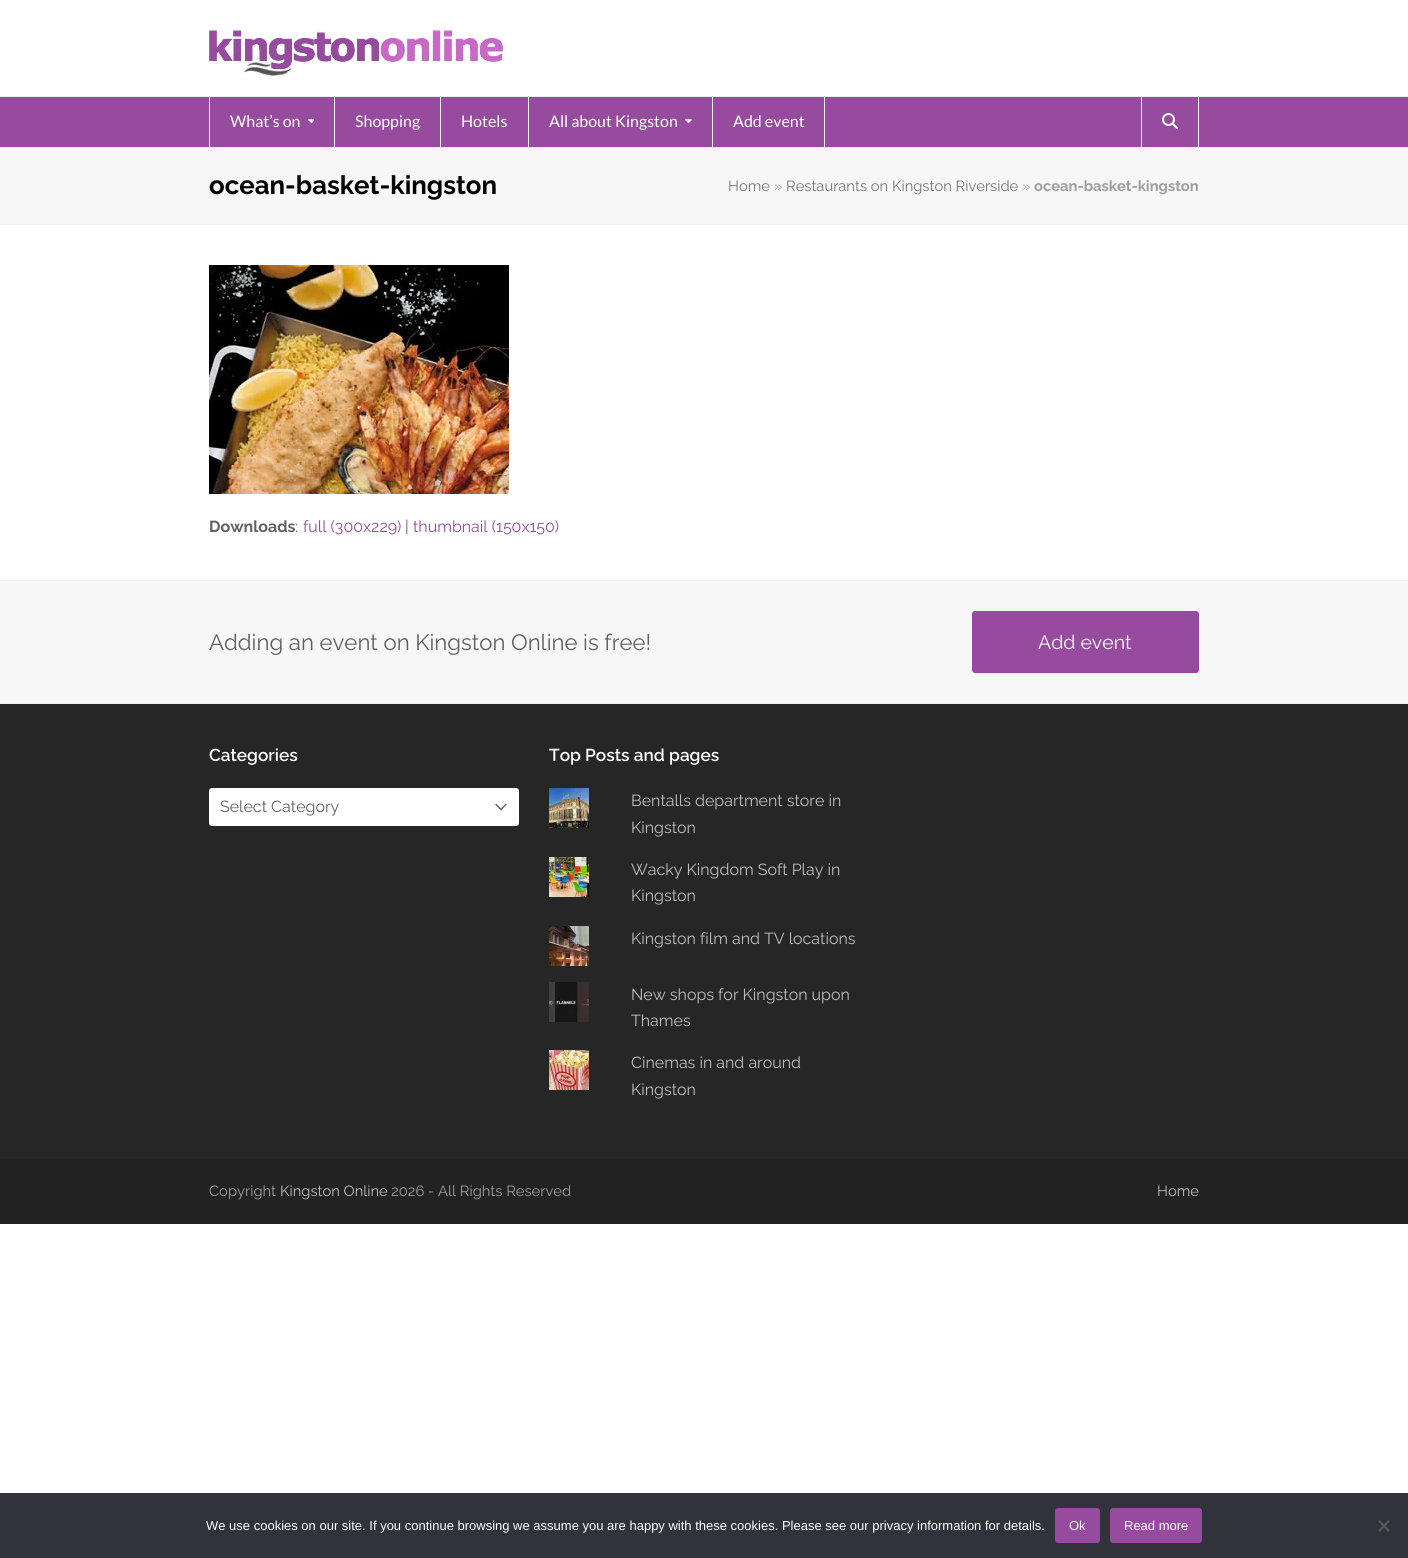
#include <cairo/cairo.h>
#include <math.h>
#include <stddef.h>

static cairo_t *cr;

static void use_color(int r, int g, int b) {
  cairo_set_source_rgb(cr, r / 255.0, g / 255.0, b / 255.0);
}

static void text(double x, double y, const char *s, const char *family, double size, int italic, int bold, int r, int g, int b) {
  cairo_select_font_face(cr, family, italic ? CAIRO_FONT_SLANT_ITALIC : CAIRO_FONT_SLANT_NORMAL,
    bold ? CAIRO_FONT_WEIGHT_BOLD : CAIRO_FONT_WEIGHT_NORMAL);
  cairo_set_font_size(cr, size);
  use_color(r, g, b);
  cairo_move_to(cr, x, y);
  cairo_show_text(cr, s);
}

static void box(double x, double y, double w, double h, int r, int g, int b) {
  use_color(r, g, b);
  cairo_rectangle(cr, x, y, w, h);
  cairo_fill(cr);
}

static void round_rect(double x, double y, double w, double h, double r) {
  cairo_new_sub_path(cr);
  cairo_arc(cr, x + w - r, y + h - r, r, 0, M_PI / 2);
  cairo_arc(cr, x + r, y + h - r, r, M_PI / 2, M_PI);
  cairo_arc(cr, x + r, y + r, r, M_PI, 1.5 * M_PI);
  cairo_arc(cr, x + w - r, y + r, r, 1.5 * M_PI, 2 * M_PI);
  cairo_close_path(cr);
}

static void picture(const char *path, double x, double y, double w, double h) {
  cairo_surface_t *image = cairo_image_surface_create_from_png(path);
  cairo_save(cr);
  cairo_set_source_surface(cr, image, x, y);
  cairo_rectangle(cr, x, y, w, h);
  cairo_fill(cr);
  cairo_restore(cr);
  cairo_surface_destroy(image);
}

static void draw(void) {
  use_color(255, 255, 255);
  cairo_paint(cr);
  picture("img_01.png", 209, 30, 294, 46);
  box(0, 97, 1408, 50, 150, 75, 158);
  box(0, 96, 1408, 1, 238, 238, 238);
  box(1198, 97, 1, 50, 238, 238, 238);
  box(209, 97, 1, 50, 238, 238, 238);
  box(334, 97, 1, 50, 238, 238, 238);
  picture("img_02.png", 308, 119, 6, 5);
  box(440, 97, 1, 50, 238, 238, 238);
  box(528, 97, 1, 50, 238, 238, 238);
  box(712, 97, 1, 50, 238, 238, 238);
  picture("img_03.png", 685, 119, 7, 5);
  box(824, 97, 1, 50, 238, 238, 238);
  box(1141, 97, 1, 50, 238, 238, 238);
  picture("img_04.png", 1162, 113, 16, 16);
  box(0, 148, 1408, 76, 247, 247, 247);
  box(0, 147, 1408, 1, 238, 238, 238);
  box(0, 224, 1408, 1, 238, 238, 238);
  picture("img_05.png", 209, 265, 300, 229);
  box(0, 581, 1408, 122, 247, 247, 247);
  box(0, 580, 1408, 1, 238, 238, 238);
  box(0, 703, 1408, 1, 238, 238, 238);
  use_color(150, 75, 158);
  round_rect(972, 611, 227, 62, 3);
  cairo_fill(cr);
  box(0, 704, 1408, 455, 38, 38, 38);
  use_color(255, 255, 255);
  round_rect(209, 788, 310, 38, 3);
  cairo_fill(cr);
  cairo_rectangle(cr, 209.5, 788.5, 309, 37);
  cairo_set_source_rgba(cr, 1, 1, 1, 0.06);
  cairo_set_line_width(cr, 1);
  cairo_stroke(cr);
  picture("img_06.png", 495, 803, 12, 8);
  picture("img_07.png", 549, 788, 40, 40);
  picture("img_08.png", 549, 857, 40, 40);
  picture("img_09.png", 549, 926, 40, 40);
  picture("img_10.png", 549, 982, 40, 40);
  picture("img_11.png", 549, 1050, 40, 40);
  box(0, 1159, 1408, 65, 34, 34, 34);
  box(0, 1493, 1408, 65, 50, 50, 58);
  use_color(150, 75, 158);
  round_rect(1055, 1508, 45, 35, 3);
  cairo_fill(cr);
  round_rect(1110, 1508, 92, 35, 3);
  cairo_fill(cr);
  use_color(89, 89, 93);
  cairo_new_path(cr);
  cairo_move_to(cr, 1388.5, 1520);
  cairo_line_to(cr, 1390, 1521);
  cairo_line_to(cr, 1379.5, 1532);
  cairo_line_to(cr, 1378, 1530.5);
  cairo_close_path(cr);
  cairo_fill(cr);
  cairo_new_path(cr);
  cairo_move_to(cr, 1378, 1521);
  cairo_line_to(cr, 1379.5, 1520);
  cairo_line_to(cr, 1390, 1530.5);
  cairo_line_to(cr, 1388.5, 1532);
  cairo_close_path(cr);
  cairo_fill(cr);
  text(230, 127, "What’s on", "Lato", 16, 0, 0, 255, 255, 255);
  text(355, 127, "Shopping", "Lato", 16, 0, 0, 255, 255, 255);
  text(461, 127, "Hotels", "Lato", 16, 0, 0, 255, 255, 255);
  text(549, 127, "All about Kingston", "Lato", 16, 0, 0, 255, 255, 255);
  text(733, 127, "Add event", "Lato", 16, 0, 0, 255, 255, 255);
  text(209, 194, "ocean-basket-kingston", "Raleway", 25.8, 0, 1, 0, 0, 0);
  text(728, 191, "Home", "Raleway", 14.75, 0, 0, 117, 117, 117);
  text(774, 191, "»", "Raleway", 14.75, 0, 0, 158, 158, 158);
  text(786, 191, "Restaurants on Kingston Riverside", "Raleway", 14.75, 0, 0, 117, 117, 117);
  text(1022, 191, "»", "Raleway", 14.75, 0, 0, 158, 158, 158);
  text(1034, 191, "ocean-basket-kingston", "Raleway", 14.75, 0, 1, 158, 158, 158);
  text(209, 532, "Downloads", "Raleway", 16, 0, 1, 97, 97, 97);
  text(295, 532, ":", "Raleway", 16, 0, 0, 97, 97, 97);
  text(303, 532, "full (300x229)", "Raleway", 16, 0, 0, 150, 75, 158);
  text(405, 532, "|", "Raleway", 16, 0, 0, 97, 97, 97);
  text(413, 532, "thumbnail (150x150)", "Raleway", 16, 0, 0, 150, 75, 158);
  text(209, 650, "Adding an event on Kingston Online is free!", "Raleway", 22.2, 0, 0, 97, 97, 97);
  text(1038, 649, "Add event", "Raleway", 19.5, 0, 0, 255, 255, 255);
  text(209, 761, "Categories", "Raleway SemiBold", 17.25, 0, 0, 255, 255, 255);
  text(220, 812, "Select Category", "Raleway", 16, 0, 0, 97, 97, 97);
  text(549, 761, "Top Posts and pages", "Raleway SemiBold", 17.25, 0, 0, 255, 255, 255);
  text(631, 806, "Bentalls department store in", "Raleway", 16, 0, 0, 189, 189, 189);
  text(631, 833, "Kingston", "Raleway", 16, 0, 0, 189, 189, 189);
  text(631, 875, "Wacky Kingdom Soft Play in", "Raleway", 16, 0, 0, 189, 189, 189);
  text(631, 901, "Kingston", "Raleway", 16, 0, 0, 189, 189, 189);
  text(631, 944, "Kingston film and TV locations", "Raleway", 16, 0, 0, 189, 189, 189);
  text(631, 1000, "New shops for Kingston upon", "Raleway", 16, 0, 0, 189, 189, 189);
  text(631, 1026, "Thames", "Raleway", 16, 0, 0, 189, 189, 189);
  text(631, 1068, "Cinemas in and around", "Raleway", 16, 0, 0, 189, 189, 189);
  text(631, 1095, "Kingston", "Raleway", 16, 0, 0, 189, 189, 189);
  text(209, 1196, "Copyright", "Raleway", 14.75, 0, 0, 158, 158, 158);
  text(280, 1196, "Kingston Online", "Raleway", 14.75, 0, 0, 189, 189, 189);
  text(391, 1196, "2026 - All Rights Reserved", "Raleway", 14.75, 0, 0, 158, 158, 158);
  text(1157, 1196, "Home", "Raleway", 14.75, 0, 0, 189, 189, 189);
  text(206, 1530, "We use cookies on our site. If you continue browsing we assume you are happy with these cookies. Please see our privacy information for details.", "Liberation Sans", 13, 0, 0, 255, 255, 255);
  text(1069, 1530, "Ok", "Liberation Sans", 13, 0, 0, 255, 255, 255);
  text(1124, 1530, "Read more", "Liberation Sans", 13, 0, 0, 255, 255, 255);
}

int main(void) {
  cairo_surface_t *surface = cairo_image_surface_create(CAIRO_FORMAT_RGB24, 1408, 1558);
  cr = cairo_create(surface);
  cairo_font_options_t *options = cairo_font_options_create();
  cairo_font_options_set_hint_metrics(options, CAIRO_HINT_METRICS_OFF);
  cairo_font_options_set_hint_style(options, CAIRO_HINT_STYLE_NONE);
  cairo_set_font_options(cr, options);
  cairo_set_miter_limit(cr, 4);
  draw();
  cairo_surface_write_to_png(surface, "out.png");
  cairo_font_options_destroy(options);
  cairo_destroy(cr);
  cairo_surface_destroy(surface);
  return 0;
}
